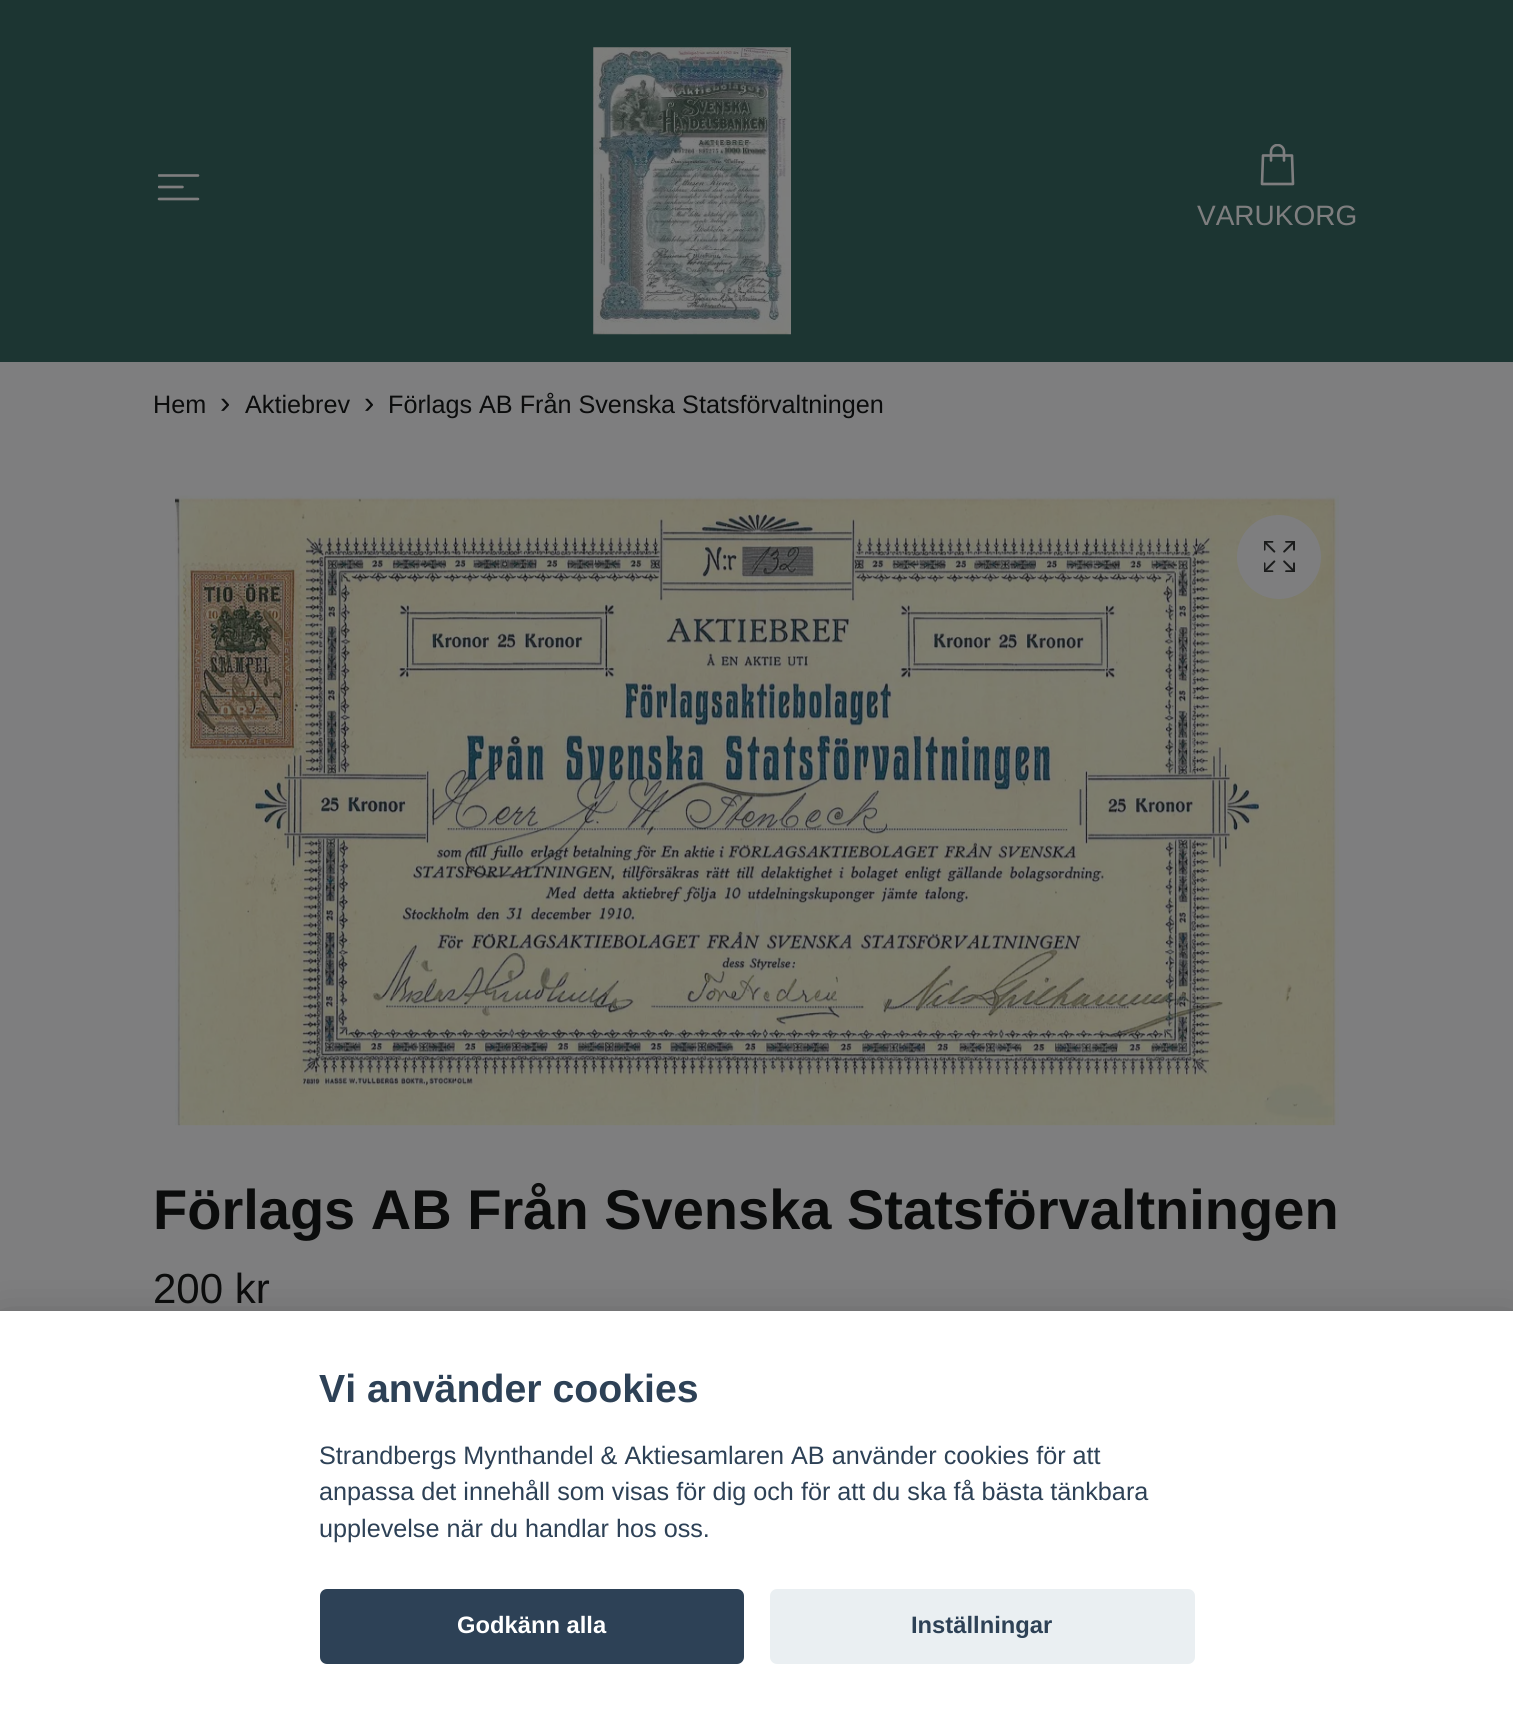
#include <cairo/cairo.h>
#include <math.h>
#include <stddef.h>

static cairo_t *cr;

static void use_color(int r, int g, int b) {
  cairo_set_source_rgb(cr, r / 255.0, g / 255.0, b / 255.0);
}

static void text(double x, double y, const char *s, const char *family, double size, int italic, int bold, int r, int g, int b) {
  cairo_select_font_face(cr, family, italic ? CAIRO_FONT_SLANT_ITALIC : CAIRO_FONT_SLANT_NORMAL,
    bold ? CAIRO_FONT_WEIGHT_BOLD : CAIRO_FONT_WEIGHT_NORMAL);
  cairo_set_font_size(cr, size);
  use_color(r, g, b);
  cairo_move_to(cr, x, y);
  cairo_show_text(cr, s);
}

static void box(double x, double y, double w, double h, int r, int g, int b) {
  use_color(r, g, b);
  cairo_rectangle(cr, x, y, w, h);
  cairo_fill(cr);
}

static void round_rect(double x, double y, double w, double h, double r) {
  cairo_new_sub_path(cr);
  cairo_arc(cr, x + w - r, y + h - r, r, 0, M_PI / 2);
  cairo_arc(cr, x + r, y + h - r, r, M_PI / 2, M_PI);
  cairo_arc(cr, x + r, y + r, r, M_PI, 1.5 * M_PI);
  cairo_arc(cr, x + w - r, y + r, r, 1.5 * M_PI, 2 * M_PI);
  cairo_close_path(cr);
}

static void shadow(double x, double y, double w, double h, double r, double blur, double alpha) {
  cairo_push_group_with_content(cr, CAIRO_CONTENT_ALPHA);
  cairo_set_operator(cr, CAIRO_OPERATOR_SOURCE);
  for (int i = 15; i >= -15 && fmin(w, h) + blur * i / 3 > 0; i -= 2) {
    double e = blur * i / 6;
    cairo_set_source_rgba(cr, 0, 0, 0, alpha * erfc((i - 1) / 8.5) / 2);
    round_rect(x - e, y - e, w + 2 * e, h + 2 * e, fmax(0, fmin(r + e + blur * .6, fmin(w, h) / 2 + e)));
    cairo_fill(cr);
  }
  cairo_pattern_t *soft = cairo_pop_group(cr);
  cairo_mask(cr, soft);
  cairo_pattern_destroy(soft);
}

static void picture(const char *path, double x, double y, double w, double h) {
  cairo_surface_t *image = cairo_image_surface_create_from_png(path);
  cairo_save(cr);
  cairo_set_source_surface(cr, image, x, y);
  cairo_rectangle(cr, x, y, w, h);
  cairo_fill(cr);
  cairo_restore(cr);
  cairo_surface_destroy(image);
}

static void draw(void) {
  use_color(126, 126, 127);
  cairo_paint(cr);
  box(0, 0, 1513, 362, 28, 53, 50);
  cairo_save(cr);
  cairo_rectangle(cr, 158, 166, 42, 42);
  cairo_clip(cr);
  cairo_new_path(cr);
  cairo_move_to(cr, 159, 175.5);
  cairo_line_to(cr, 198, 175.5);
  cairo_move_to(cr, 159, 187);
  cairo_line_to(cr, 182.5, 187);
  use_color(126, 126, 127);
  cairo_set_line_width(cr, 2.6);
  cairo_set_line_cap(cr, CAIRO_LINE_CAP_ROUND);
  cairo_set_line_join(cr, CAIRO_LINE_JOIN_ROUND);
  cairo_stroke(cr);
  cairo_restore(cr);
  cairo_new_path(cr);
  cairo_move_to(cr, 159, 199);
  cairo_line_to(cr, 198, 199);
  use_color(126, 126, 127);
  cairo_set_line_width(cr, 2.6);
  cairo_set_line_cap(cr, CAIRO_LINE_CAP_ROUND);
  cairo_set_line_join(cr, CAIRO_LINE_JOIN_ROUND);
  cairo_stroke(cr);
  picture("img_01.png", 593, 47, 198, 288);
  cairo_new_path(cr);
  cairo_move_to(cr, 1293, 184);
  cairo_line_to(cr, 1262, 184);
  cairo_line_to(cr, 1263, 155.5);
  cairo_line_to(cr, 1292, 155.5);
  cairo_close_path(cr);
  cairo_stroke(cr);
  cairo_save(cr);
  cairo_rectangle(cr, 1257, 144, 42, 42);
  cairo_clip(cr);
  cairo_new_path(cr);
  cairo_move_to(cr, 1271, 160.5);
  cairo_line_to(cr, 1271, 151.5);
  cairo_curve_to(cr, 1271, 148, 1274, 145, 1277.5, 145);
  cairo_curve_to(cr, 1281, 145, 1284, 148, 1284, 151.5);
  cairo_line_to(cr, 1284, 160.5);
  cairo_stroke(cr);
  cairo_restore(cr);
  picture("img_02.png", 175, 495, 1164, 631);
  cairo_arc(cr, 1279, 557, 42, 0, 2 * M_PI);
  cairo_fill(cr);
  picture("img_03.png", 1264, 541, 31, 31);
  use_color(2, 2, 3);
  shadow(0, 1328, 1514, 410, 0, 26, 0.28);
  box(0, 1311, 1513, 409, 255, 255, 255);
  use_color(45, 65, 86);
  round_rect(320, 1589, 424, 75, 7);
  cairo_fill(cr);
  use_color(234, 239, 242);
  round_rect(770, 1589, 425, 75, 7);
  cairo_fill(cr);
  text(1197, 225, "VARUKORG", "Liberation Sans", 28, 0, 0, 126, 126, 127);
  text(153, 413, "Hem", "Liberation Sans", 25.2, 0, 0, 11, 12, 12);
  text(220, 413, "›", "Liberation Sans", 31, 0, 0, 11, 12, 12);
  text(245, 413, "Aktiebrev", "Liberation Sans", 25.2, 0, 0, 11, 12, 12);
  text(364, 413, "›", "Liberation Sans", 31, 0, 0, 11, 12, 12);
  text(388, 413, "Förlags AB Från Svenska Statsförvaltningen", "Liberation Sans", 25.2, 0, 0, 11, 12, 12);
  text(153, 1229, "Förlags AB Från Svenska Statsförvaltningen", "Liberation Sans", 56, 0, 1, 11, 12, 12);
  text(153, 1303, "200 kr", "Liberation Sans", 42, 0, 0, 11, 12, 12);
  text(319, 1402, "Vi använder cookies", "Liberation Sans", 39.25, 0, 1, 45, 65, 86);
  text(319, 1464, "Strandbergs Mynthandel & Aktiesamlaren AB använder cookies för att", "Liberation Sans", 25.2, 0, 0, 45, 65, 86);
  text(319, 1500, "anpassa det innehåll som visas för dig och för att du ska få bästa tänkbara", "Liberation Sans", 25.2, 0, 0, 45, 65, 86);
  text(319, 1537, "upplevelse när du handlar hos oss.", "Liberation Sans", 25.2, 0, 0, 45, 65, 86);
  text(457, 1633, "Godkänn alla", "Liberation Sans", 23.75, 0, 1, 255, 255, 255);
  text(911, 1633, "Inställningar", "Liberation Sans", 23.75, 0, 1, 45, 65, 86);
}

int main(void) {
  cairo_surface_t *surface = cairo_image_surface_create(CAIRO_FORMAT_RGB24, 1513, 1720);
  cr = cairo_create(surface);
  cairo_font_options_t *options = cairo_font_options_create();
  cairo_font_options_set_hint_metrics(options, CAIRO_HINT_METRICS_OFF);
  cairo_font_options_set_hint_style(options, CAIRO_HINT_STYLE_NONE);
  cairo_set_font_options(cr, options);
  cairo_set_miter_limit(cr, 4);
  draw();
  cairo_surface_write_to_png(surface, "out.png");
  cairo_font_options_destroy(options);
  cairo_destroy(cr);
  cairo_surface_destroy(surface);
  return 0;
}
